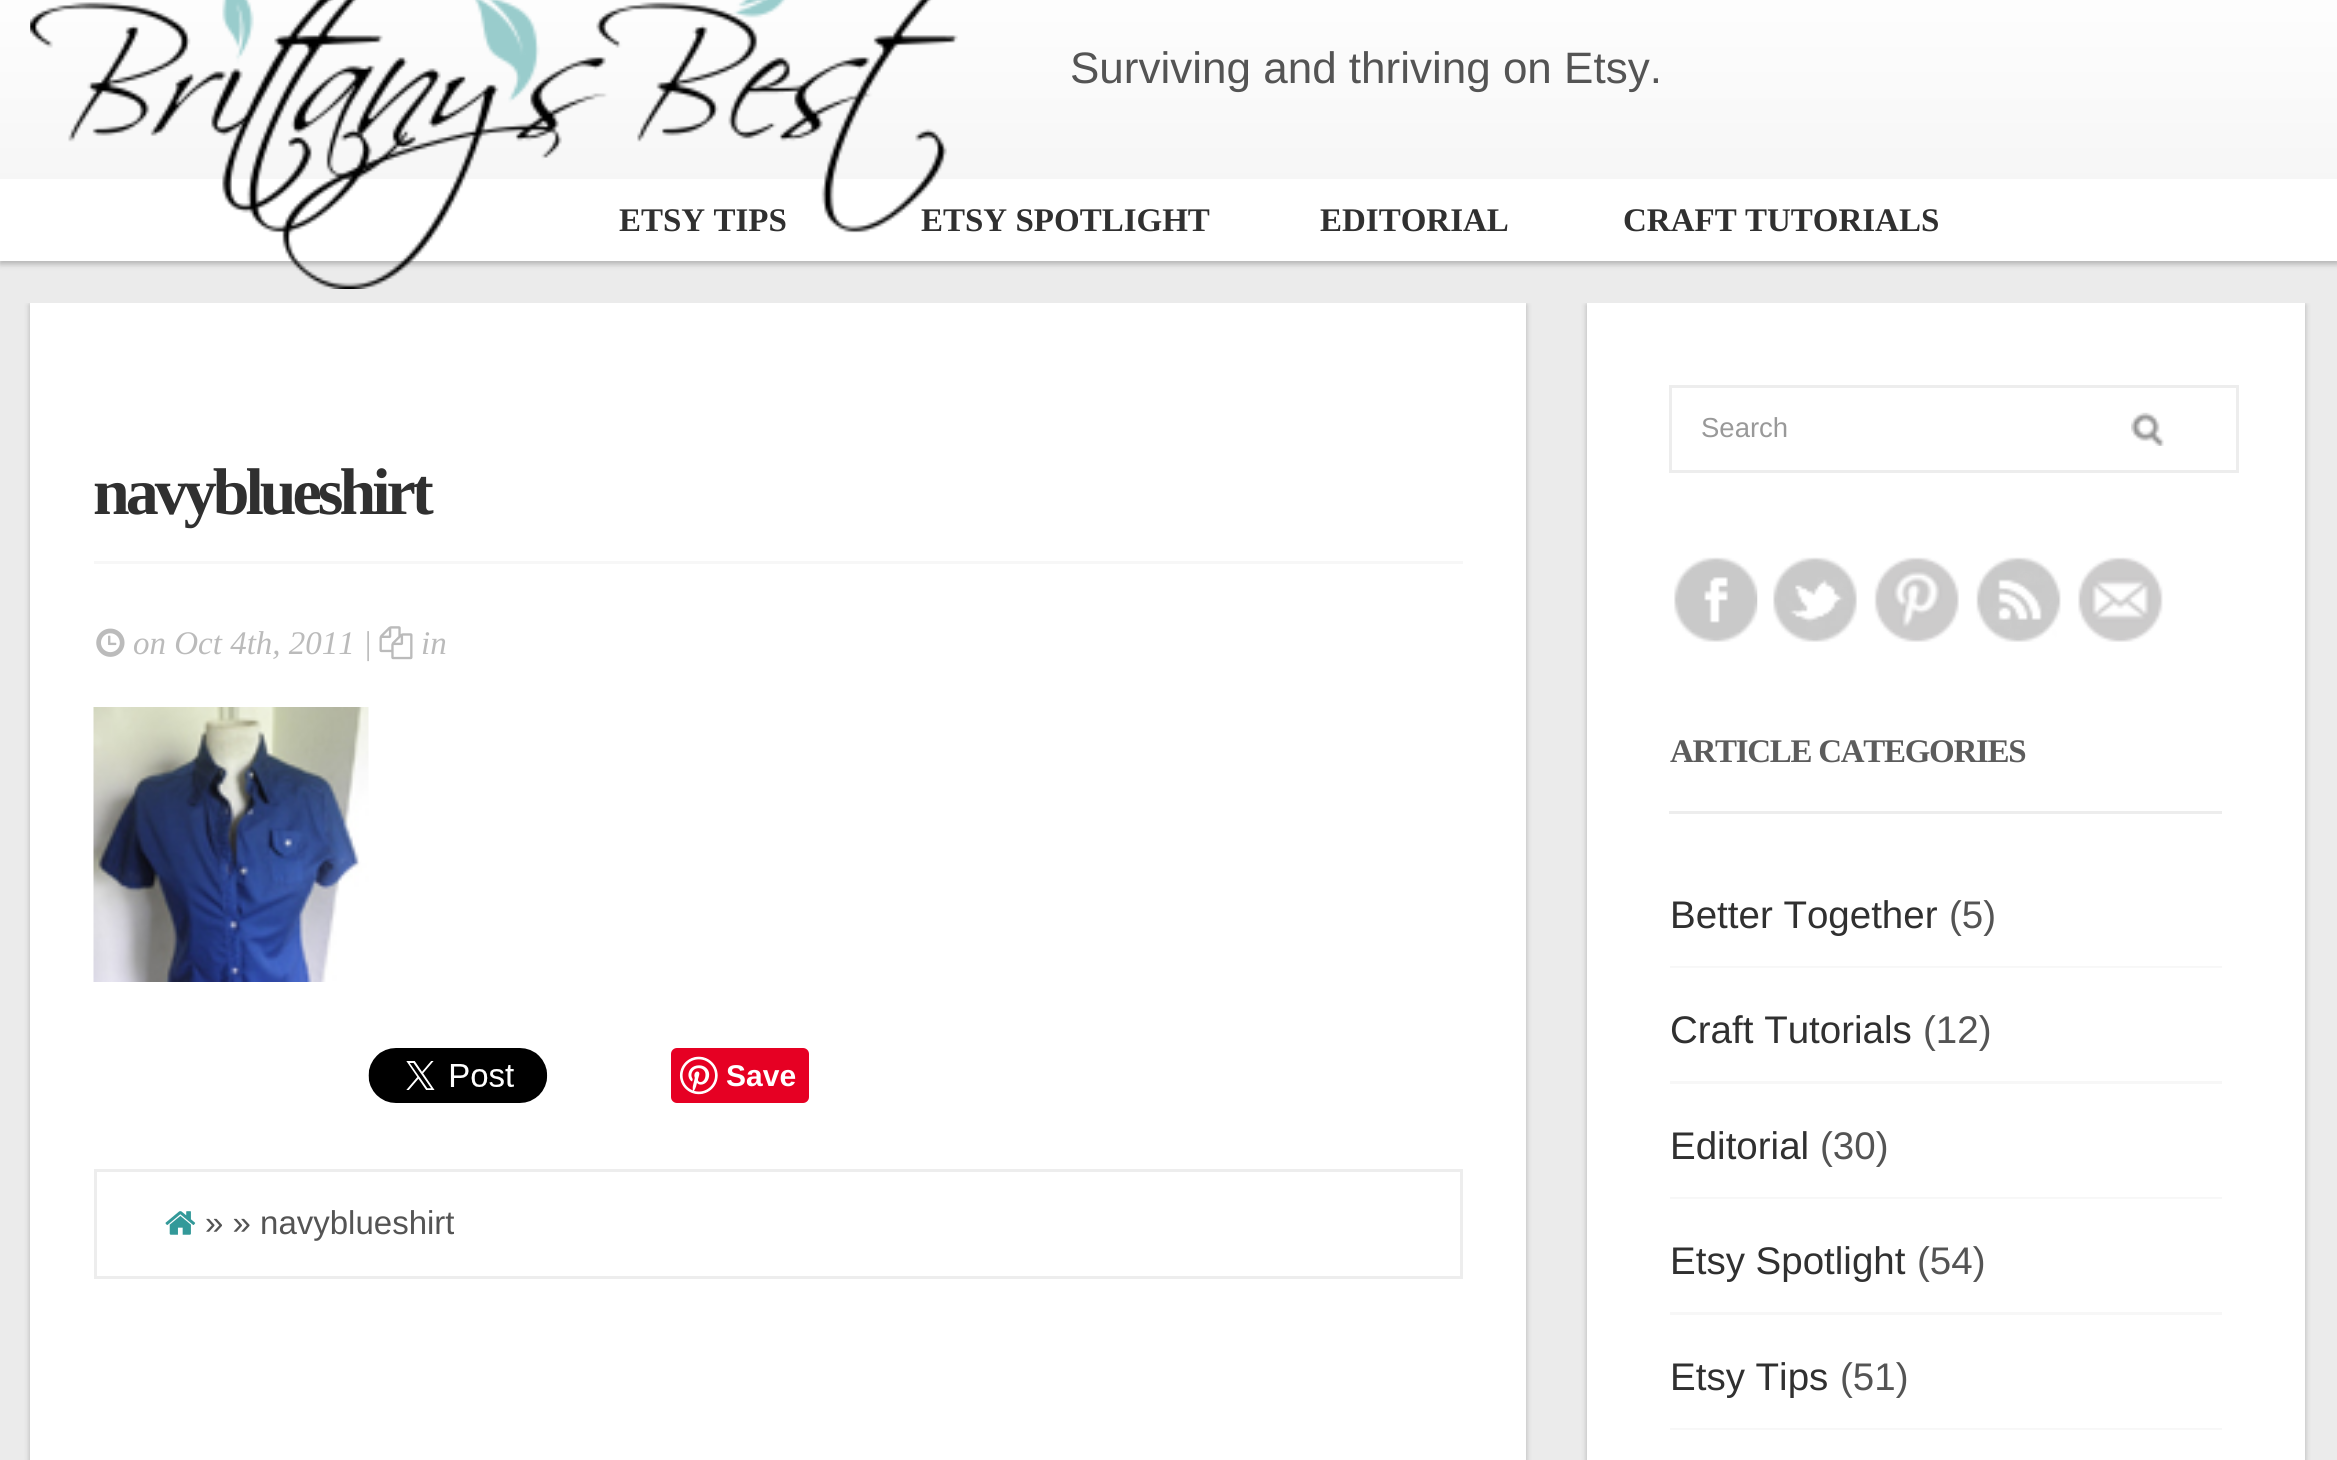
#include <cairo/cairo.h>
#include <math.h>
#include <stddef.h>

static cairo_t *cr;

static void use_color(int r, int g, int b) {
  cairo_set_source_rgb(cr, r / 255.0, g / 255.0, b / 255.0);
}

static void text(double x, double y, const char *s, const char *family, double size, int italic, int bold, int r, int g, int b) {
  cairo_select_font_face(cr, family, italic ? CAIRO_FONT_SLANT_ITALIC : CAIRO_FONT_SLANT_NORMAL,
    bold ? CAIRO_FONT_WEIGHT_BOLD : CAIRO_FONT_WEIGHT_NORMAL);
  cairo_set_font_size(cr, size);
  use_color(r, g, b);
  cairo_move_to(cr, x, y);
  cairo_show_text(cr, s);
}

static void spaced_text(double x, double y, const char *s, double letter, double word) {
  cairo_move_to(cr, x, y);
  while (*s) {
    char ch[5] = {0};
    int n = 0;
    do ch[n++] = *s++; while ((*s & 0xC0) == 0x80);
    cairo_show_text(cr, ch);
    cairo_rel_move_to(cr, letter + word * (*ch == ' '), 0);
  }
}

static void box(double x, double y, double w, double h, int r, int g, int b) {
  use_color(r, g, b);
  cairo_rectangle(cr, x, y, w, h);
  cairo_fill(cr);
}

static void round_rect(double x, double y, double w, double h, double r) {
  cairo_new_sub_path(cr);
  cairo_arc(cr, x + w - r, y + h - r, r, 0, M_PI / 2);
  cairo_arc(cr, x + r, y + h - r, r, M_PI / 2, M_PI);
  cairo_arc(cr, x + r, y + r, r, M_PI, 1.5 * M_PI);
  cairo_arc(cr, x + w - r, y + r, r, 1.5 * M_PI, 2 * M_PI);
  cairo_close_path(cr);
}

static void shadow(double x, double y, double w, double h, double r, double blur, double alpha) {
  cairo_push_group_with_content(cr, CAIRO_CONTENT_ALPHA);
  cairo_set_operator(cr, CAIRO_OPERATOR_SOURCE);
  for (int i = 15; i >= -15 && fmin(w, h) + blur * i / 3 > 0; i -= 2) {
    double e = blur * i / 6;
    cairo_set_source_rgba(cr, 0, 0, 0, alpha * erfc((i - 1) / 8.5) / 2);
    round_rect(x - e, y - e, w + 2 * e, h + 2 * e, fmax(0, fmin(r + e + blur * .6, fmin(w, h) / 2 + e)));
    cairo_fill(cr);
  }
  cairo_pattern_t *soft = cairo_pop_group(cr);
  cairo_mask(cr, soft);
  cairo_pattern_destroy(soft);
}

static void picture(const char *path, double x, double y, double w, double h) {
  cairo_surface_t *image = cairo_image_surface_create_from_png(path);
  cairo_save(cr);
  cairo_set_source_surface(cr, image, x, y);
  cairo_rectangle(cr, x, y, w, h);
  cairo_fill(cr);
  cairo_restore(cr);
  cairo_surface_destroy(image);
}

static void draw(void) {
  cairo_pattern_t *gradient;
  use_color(235, 235, 235);
  cairo_paint(cr);
  use_color(0, 0, 0);
  shadow(0, -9, 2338, 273, 0, 3, 0.25);
  gradient = cairo_pattern_create_linear(1169, -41, 1169, 261);
  cairo_pattern_add_color_stop_rgba(gradient, 0, 1, 1, 1, 1);
  cairo_pattern_add_color_stop_rgba(gradient, 1, 0.953, 0.953, 0.953, 1);
  cairo_set_source(cr, gradient);
  cairo_pattern_destroy(gradient);
  cairo_rectangle(cr, 0, 0, 2337, 179);
  cairo_fill(cr);
  box(0, 179, 2337, 82, 255, 255, 255);
  picture("img_01.png", 30, 0, 928, 289);
  cairo_save(cr);
  cairo_rectangle(cr, 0, 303, 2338, 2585);
  cairo_clip(cr);
  use_color(0, 0, 0);
  shadow(30, 305, 1496, 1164, 0, 3, 0.25);
  cairo_restore(cr);
  box(30, 303, 1496, 1157, 255, 255, 255);
  box(94, 561, 1369, 3, 247, 247, 247);
  picture("img_02.png", 96, 628, 29, 29);
  picture("img_03.png", 379, 626, 34, 34);
  picture("img_04.png", 93, 707, 276, 275);
  picture("img_05.png", 368, 1048, 180, 55);
  use_color(230, 0, 35);
  round_rect(671, 1048, 138, 55, 6);
  cairo_fill(cr);
  picture("img_06.png", 679, 1056, 39, 39);
  cairo_rectangle(cr, 95.5, 1170.5, 1366, 107);
  use_color(237, 237, 237);
  cairo_set_line_width(cr, 3);
  cairo_stroke(cr);
  picture("img_07.png", 165, 1211, 31, 24);
  cairo_save(cr);
  cairo_rectangle(cr, 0, 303, 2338, 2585);
  cairo_clip(cr);
  use_color(0, 0, 0);
  shadow(1587, 305, 718, 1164, 0, 3, 0.25);
  cairo_restore(cr);
  box(1587, 303, 718, 1157, 255, 255, 255);
  cairo_rectangle(cr, 1670.5, 386.5, 567, 85);
  use_color(237, 237, 237);
  cairo_stroke(cr);
  picture("img_08.png", 2131, 412, 33, 34);
  picture("img_09.png", 1674, 557, 84, 85);
  picture("img_10.png", 1773, 557, 84, 85);
  picture("img_11.png", 1874, 557, 85, 85);
  picture("img_12.png", 1976, 557, 85, 85);
  picture("img_13.png", 2078, 557, 85, 85);
  box(1669, 811, 553, 3, 237, 237, 237);
  picture("img_14.png", 1670, 966, 552, 2);
  box(1670, 1081, 552, 3, 247, 247, 247);
  picture("img_14.png", 1670, 1197, 552, 2);
  box(1670, 1312, 552, 3, 247, 247, 247);
  picture("img_14.png", 1670, 1428, 552, 2);
  text(1070, 83, "Surviving and thriving on Etsy.", "Liberation Sans", 44, 0, 0, 84, 84, 84);
  text(619, 231, "ETSY TIPS", "Liberation Serif", 33, 0, 1, 48, 48, 48);
  text(921, 231, "ETSY SPOTLIGHT", "Liberation Serif", 33, 0, 1, 48, 48, 48);
  text(1320, 231, "EDITORIAL", "Liberation Serif", 33, 0, 1, 48, 48, 48);
  text(1623, 231, "CRAFT TUTORIALS", "Liberation Serif", 33, 0, 1, 48, 48, 48);
  cairo_set_font_size(cr, 66);
  spaced_text(93, 514, "navyblueshirt", -4, 0);
  text(133, 654, "on Oct 4th, 2011 |", "Liberation Serif", 33, 1, 0, 187, 187, 187);
  text(421, 654, "in", "Liberation Serif", 33, 1, 0, 187, 187, 187);
  text(726, 1086, "Save", "Liberation Sans", 30, 0, 1, 255, 255, 255);
  text(205, 1234, "» » navyblueshirt", "Liberation Sans", 33, 0, 0, 84, 84, 84);
  text(1701, 437, "Search", "Liberation Sans", 27.5, 0, 0, 153, 153, 153);
  cairo_select_font_face(cr, "Liberation Serif", CAIRO_FONT_SLANT_NORMAL, CAIRO_FONT_WEIGHT_BOLD);
  cairo_set_font_size(cr, 33);
  use_color(92, 92, 92);
  spaced_text(1670, 762, "ARTICLE CATEGORIES", -1.3, 0);
  text(1670, 928, "Better Together", "Liberation Sans", 38.5, 0, 0, 48, 48, 48);
  text(1949, 928, "(5)", "Liberation Sans", 38.5, 0, 0, 84, 84, 84);
  text(1670, 1043, "Craft Tutorials", "Liberation Sans", 38.5, 0, 0, 48, 48, 48);
  text(1923, 1043, "(12)", "Liberation Sans", 38.5, 0, 0, 84, 84, 84);
  text(1670, 1159, "Editorial", "Liberation Sans", 38.5, 0, 0, 48, 48, 48);
  text(1820, 1159, "(30)", "Liberation Sans", 38.5, 0, 0, 84, 84, 84);
  text(1670, 1274, "Etsy Spotlight", "Liberation Sans", 38.5, 0, 0, 48, 48, 48);
  text(1917, 1274, "(54)", "Liberation Sans", 38.5, 0, 0, 84, 84, 84);
  text(1670, 1390, "Etsy Tips", "Liberation Sans", 38.5, 0, 0, 48, 48, 48);
  text(1840, 1390, "(51)", "Liberation Sans", 38.5, 0, 0, 84, 84, 84);
}

int main(void) {
  cairo_surface_t *surface = cairo_image_surface_create(CAIRO_FORMAT_RGB24, 2337, 1460);
  cr = cairo_create(surface);
  cairo_font_options_t *options = cairo_font_options_create();
  cairo_font_options_set_hint_metrics(options, CAIRO_HINT_METRICS_OFF);
  cairo_font_options_set_hint_style(options, CAIRO_HINT_STYLE_NONE);
  cairo_set_font_options(cr, options);
  cairo_set_miter_limit(cr, 4);
  draw();
  cairo_surface_write_to_png(surface, "out.png");
  cairo_font_options_destroy(options);
  cairo_destroy(cr);
  cairo_surface_destroy(surface);
  return 0;
}
